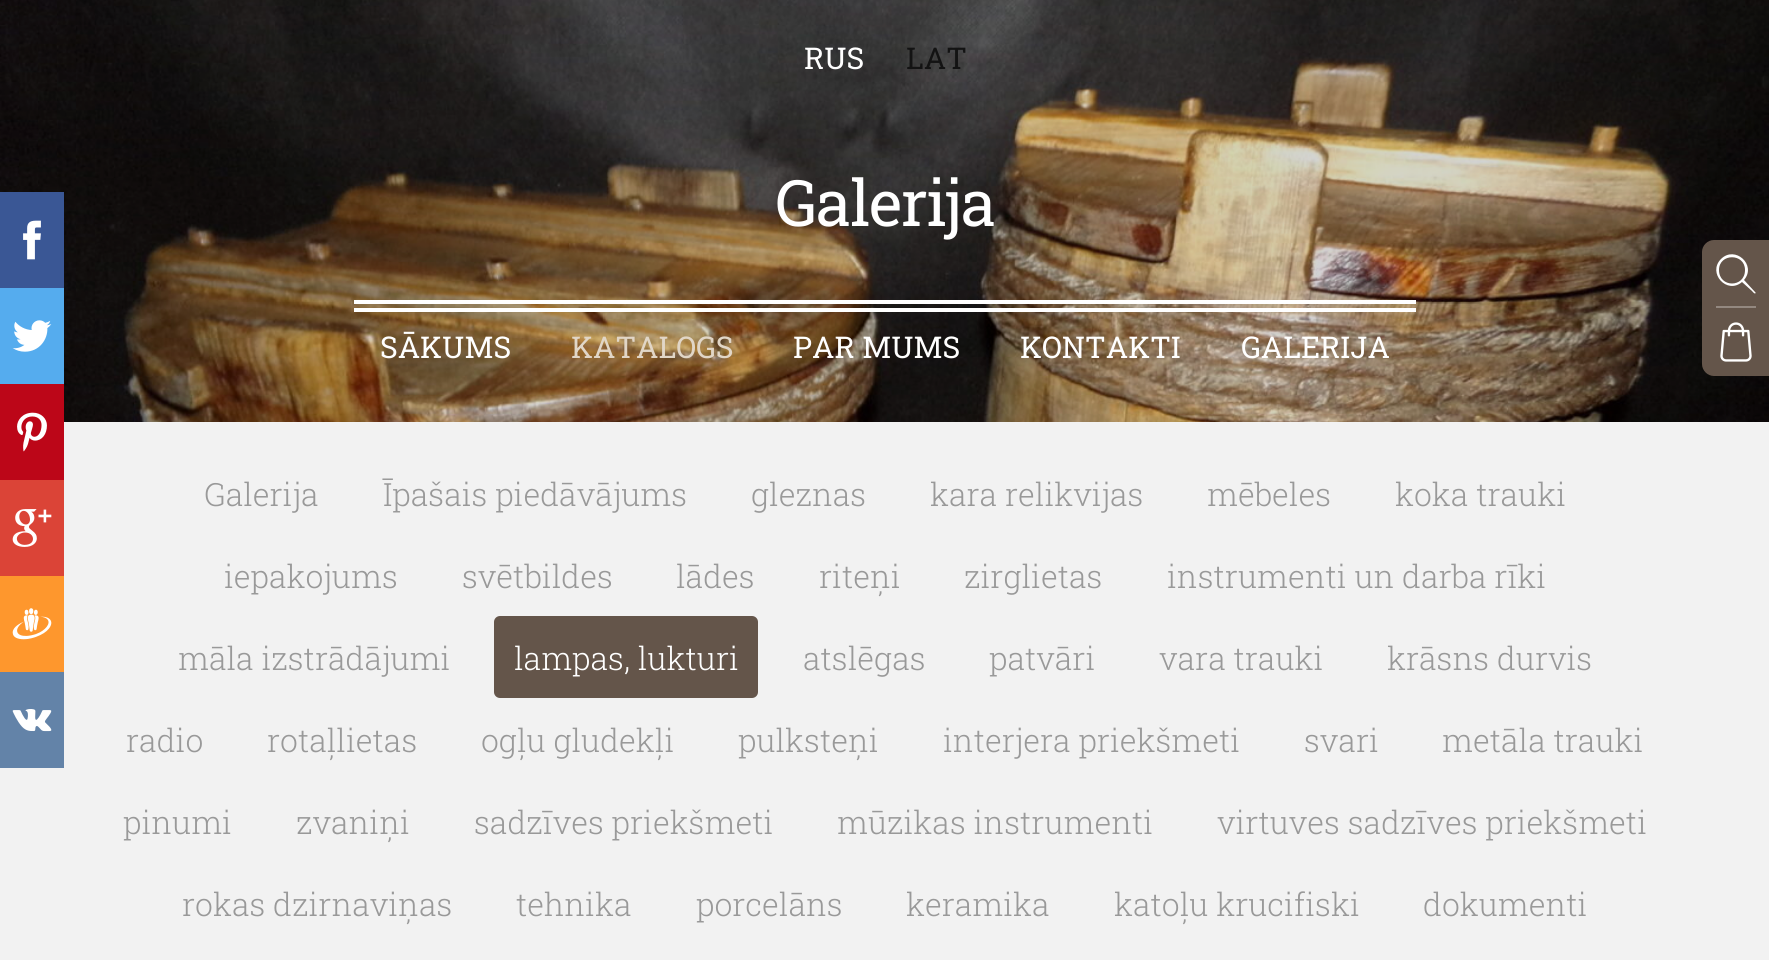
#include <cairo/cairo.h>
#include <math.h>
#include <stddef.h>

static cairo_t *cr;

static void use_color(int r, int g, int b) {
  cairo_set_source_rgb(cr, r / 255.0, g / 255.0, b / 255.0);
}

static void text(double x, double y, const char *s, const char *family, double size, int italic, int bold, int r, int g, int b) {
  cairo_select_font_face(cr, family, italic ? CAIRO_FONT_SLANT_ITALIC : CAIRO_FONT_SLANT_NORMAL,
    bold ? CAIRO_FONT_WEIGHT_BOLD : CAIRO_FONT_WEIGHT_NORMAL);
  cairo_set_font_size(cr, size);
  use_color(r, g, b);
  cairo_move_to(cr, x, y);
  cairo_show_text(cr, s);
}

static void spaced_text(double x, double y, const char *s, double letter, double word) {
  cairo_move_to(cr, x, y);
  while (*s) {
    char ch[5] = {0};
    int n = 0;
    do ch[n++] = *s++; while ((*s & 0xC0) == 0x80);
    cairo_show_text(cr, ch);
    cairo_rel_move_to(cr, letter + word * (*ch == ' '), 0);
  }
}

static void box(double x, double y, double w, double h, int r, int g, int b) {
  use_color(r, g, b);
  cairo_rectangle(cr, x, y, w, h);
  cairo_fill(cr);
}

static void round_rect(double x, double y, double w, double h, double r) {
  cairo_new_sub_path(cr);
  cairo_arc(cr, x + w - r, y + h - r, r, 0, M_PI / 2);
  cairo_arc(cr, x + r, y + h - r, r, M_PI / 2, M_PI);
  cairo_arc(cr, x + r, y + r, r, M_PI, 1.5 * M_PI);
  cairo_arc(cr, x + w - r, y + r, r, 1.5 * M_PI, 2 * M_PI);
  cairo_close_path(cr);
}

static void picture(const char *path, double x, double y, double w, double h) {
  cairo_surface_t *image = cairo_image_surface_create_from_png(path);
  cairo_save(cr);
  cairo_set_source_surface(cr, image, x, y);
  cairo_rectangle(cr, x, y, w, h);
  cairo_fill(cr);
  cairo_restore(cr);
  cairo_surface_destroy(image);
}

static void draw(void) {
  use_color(255, 255, 255);
  cairo_paint(cr);
  picture("img_01.png", 0, 0, 1769, 422);
  box(0, 192, 64, 96, 58, 87, 149);
  picture("img_02.png", 23, 220, 18, 40);
  box(0, 288, 64, 96, 85, 172, 238);
  picture("img_03.png", 12, 320, 40, 32);
  box(0, 422, 1769, 538, 242, 242, 242);
  box(0, 384, 64, 96, 188, 6, 24);
  picture("img_04.png", 17, 412, 30, 40);
  box(0, 480, 64, 96, 219, 68, 55);
  picture("img_05.png", 12, 509, 40, 38);
  box(0, 576, 64, 96, 254, 151, 45);
  picture("img_06.png", 12, 608, 40, 32);
  box(0, 672, 64, 96, 99, 131, 168);
  picture("img_07.png", 12, 709, 40, 23);
  box(354, 300, 1062, 4, 255, 255, 255);
  box(354, 308, 1062, 4, 255, 255, 255);
  use_color(100, 85, 74);
  cairo_new_path(cr);
  cairo_move_to(cr, 1714, 240);
  cairo_line_to(cr, 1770, 240);
  cairo_line_to(cr, 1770, 376);
  cairo_line_to(cr, 1714, 376);
  cairo_curve_to(cr, 1707.5, 376, 1702, 370.5, 1702, 364);
  cairo_line_to(cr, 1702, 252);
  cairo_curve_to(cr, 1702, 245.5, 1707.5, 240, 1714, 240);
  cairo_close_path(cr);
  cairo_fill(cr);
  use_color(255, 255, 255);
  cairo_new_path(cr);
  cairo_move_to(cr, 1755, 292);
  cairo_line_to(cr, 1744, 280);
  cairo_curve_to(cr, 1757, 265, 1735, 245, 1721, 259);
  cairo_curve_to(cr, 1707, 273, 1727, 295, 1742, 282);
  cairo_line_to(cr, 1752, 291);
  cairo_curve_to(cr, 1756, 296, 1756, 292, 1755, 292);
  cairo_close_path(cr);
  cairo_move_to(cr, 1719, 270);
  cairo_curve_to(cr, 1719, 253, 1745, 253, 1745, 270);
  cairo_curve_to(cr, 1745, 288, 1719, 288, 1719, 270);
  cairo_close_path(cr);
  cairo_fill(cr);
  box(1716, 306, 40, 2, 147, 136, 128);
  picture("img_08.png", 1720, 322, 32, 40);
  use_color(100, 85, 74);
  round_rect(494, 616, 264, 82, 6);
  cairo_fill(cr);
  text(804, 69, "RUS", "Roboto Slab", 30, 0, 0, 255, 255, 255);
  text(906, 69, "LAT", "Roboto Slab", 30, 0, 0, 19, 19, 19);
  cairo_set_font_size(cr, 64);
  use_color(255, 255, 255);
  spaced_text(775, 226, "Galerija", -1.25, 0);
  text(380, 358, "SĀKUMS", "Roboto Slab", 30, 0, 0, 255, 255, 255);
  text(571, 358, "KATALOGS", "Roboto Slab", 30, 0, 0, 225, 214, 199);
  text(793, 358, "PAR MUMS", "Roboto Slab", 30, 0, 0, 255, 255, 255);
  text(1020, 358, "KONTAKTI", "Roboto Slab", 30, 0, 0, 255, 255, 255);
  text(1241, 358, "GALERIJA", "Roboto Slab", 30, 0, 0, 255, 255, 255);
  text(204, 506, "Galerija", "Roboto Slab Light", 32, 0, 0, 153, 153, 153);
  text(383, 506, "Īpašais piedāvājums", "Roboto Slab Light", 32, 0, 0, 153, 153, 153);
  text(751, 506, "gleznas", "Roboto Slab Light", 32, 0, 0, 153, 153, 153);
  text(930, 506, "kara relikvijas", "Roboto Slab Light", 32, 0, 0, 153, 153, 153);
  text(1207, 506, "mēbeles", "Roboto Slab Light", 32, 0, 0, 153, 153, 153);
  text(1395, 506, "koka trauki", "Roboto Slab Light", 32, 0, 0, 153, 153, 153);
  text(224, 588, "iepakojums", "Roboto Slab Light", 32, 0, 0, 153, 153, 153);
  text(462, 588, "svētbildes", "Roboto Slab Light", 32, 0, 0, 153, 153, 153);
  text(676, 588, "lādes", "Roboto Slab Light", 32, 0, 0, 153, 153, 153);
  text(819, 588, "riteņi", "Roboto Slab Light", 32, 0, 0, 153, 153, 153);
  text(964, 588, "zirglietas", "Roboto Slab Light", 32, 0, 0, 153, 153, 153);
  text(1167, 588, "instrumenti un darba rīki", "Roboto Slab Light", 32, 0, 0, 153, 153, 153);
  text(178, 670, "māla izstrādājumi", "Roboto Slab Light", 32, 0, 0, 153, 153, 153);
  text(514, 670, "lampas, lukturi", "Roboto Slab Light", 32, 0, 0, 255, 255, 255);
  text(803, 670, "atslēgas", "Roboto Slab Light", 32, 0, 0, 153, 153, 153);
  text(989, 670, "patvāri", "Roboto Slab Light", 32, 0, 0, 153, 153, 153);
  text(1159, 670, "vara trauki", "Roboto Slab Light", 32, 0, 0, 153, 153, 153);
  text(1387, 670, "krāsns durvis", "Roboto Slab Light", 32, 0, 0, 153, 153, 153);
  text(126, 752, "radio", "Roboto Slab Light", 32, 0, 0, 153, 153, 153);
  text(267, 752, "rotaļlietas", "Roboto Slab Light", 32, 0, 0, 153, 153, 153);
  text(481, 752, "ogļu gludekļi", "Roboto Slab Light", 32, 0, 0, 153, 153, 153);
  text(738, 752, "pulksteņi", "Roboto Slab Light", 32, 0, 0, 153, 153, 153);
  text(943, 752, "interjera priekšmeti", "Roboto Slab Light", 32, 0, 0, 153, 153, 153);
  text(1304, 752, "svari", "Roboto Slab Light", 32, 0, 0, 153, 153, 153);
  text(1442, 752, "metāla trauki", "Roboto Slab Light", 32, 0, 0, 153, 153, 153);
  text(123, 834, "pinumi", "Roboto Slab Light", 32, 0, 0, 153, 153, 153);
  text(296, 834, "zvaniņi", "Roboto Slab Light", 32, 0, 0, 153, 153, 153);
  text(474, 834, "sadzīves priekšmeti", "Roboto Slab Light", 32, 0, 0, 153, 153, 153);
  text(837, 834, "mūzikas instrumenti", "Roboto Slab Light", 32, 0, 0, 153, 153, 153);
  text(1217, 834, "virtuves sadzīves priekšmeti", "Roboto Slab Light", 32, 0, 0, 153, 153, 153);
  text(182, 916, "rokas dzirnaviņas", "Roboto Slab Light", 32, 0, 0, 153, 153, 153);
  text(516, 916, "tehnika", "Roboto Slab Light", 32, 0, 0, 153, 153, 153);
  text(696, 916, "porcelāns", "Roboto Slab Light", 32, 0, 0, 153, 153, 153);
  text(906, 916, "keramika", "Roboto Slab Light", 32, 0, 0, 153, 153, 153);
  text(1114, 916, "katoļu krucifiski", "Roboto Slab Light", 32, 0, 0, 153, 153, 153);
  text(1423, 916, "dokumenti", "Roboto Slab Light", 32, 0, 0, 153, 153, 153);
}

int main(void) {
  cairo_surface_t *surface = cairo_image_surface_create(CAIRO_FORMAT_RGB24, 1769, 960);
  cr = cairo_create(surface);
  cairo_font_options_t *options = cairo_font_options_create();
  cairo_font_options_set_hint_metrics(options, CAIRO_HINT_METRICS_OFF);
  cairo_font_options_set_hint_style(options, CAIRO_HINT_STYLE_NONE);
  cairo_set_font_options(cr, options);
  cairo_set_miter_limit(cr, 4);
  draw();
  cairo_surface_write_to_png(surface, "out.png");
  cairo_font_options_destroy(options);
  cairo_destroy(cr);
  cairo_surface_destroy(surface);
  return 0;
}
